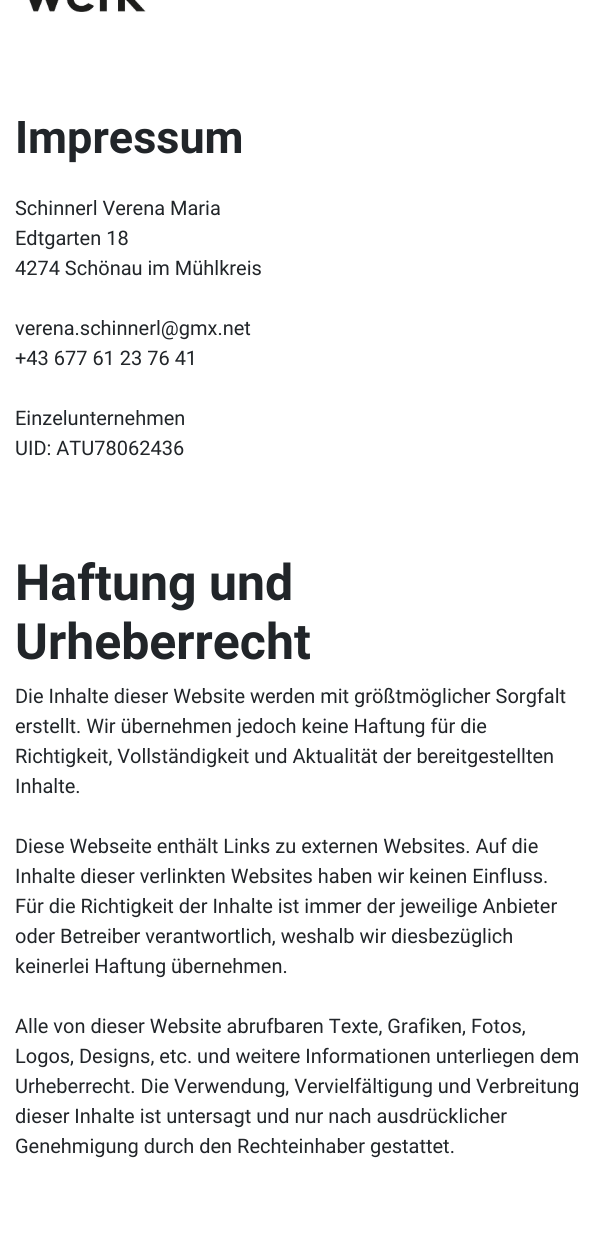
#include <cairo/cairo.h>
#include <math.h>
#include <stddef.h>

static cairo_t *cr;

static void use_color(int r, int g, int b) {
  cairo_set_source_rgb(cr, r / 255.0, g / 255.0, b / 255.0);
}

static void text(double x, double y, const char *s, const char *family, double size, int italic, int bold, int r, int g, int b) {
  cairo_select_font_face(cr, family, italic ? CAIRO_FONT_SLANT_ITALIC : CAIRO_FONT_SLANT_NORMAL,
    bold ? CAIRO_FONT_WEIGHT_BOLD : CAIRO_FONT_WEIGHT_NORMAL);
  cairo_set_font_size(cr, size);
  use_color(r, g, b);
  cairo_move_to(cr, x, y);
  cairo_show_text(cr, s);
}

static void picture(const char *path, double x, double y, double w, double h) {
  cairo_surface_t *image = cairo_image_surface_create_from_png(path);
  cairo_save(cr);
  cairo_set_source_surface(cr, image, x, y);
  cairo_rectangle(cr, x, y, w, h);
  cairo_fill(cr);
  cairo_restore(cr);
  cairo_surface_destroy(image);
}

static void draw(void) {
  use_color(255, 255, 255);
  cairo_paint(cr);
  picture("img_01.png", 29, 0, 117, 12);
  text(15, 153, "Impressum", "Roboto", 45, 0, 1, 33, 37, 41);
  text(15, 215, "Schinnerl Verena Maria", "Roboto", 20, 0, 0, 33, 37, 41);
  text(15, 245, "Edtgarten 18", "Roboto", 20, 0, 0, 33, 37, 41);
  text(15, 275, "4274 Schönau im Mühlkreis", "Roboto", 20, 0, 0, 33, 37, 41);
  text(15, 335, "verena.schinnerl@gmx.net", "Roboto", 20, 0, 0, 33, 37, 41);
  text(15, 365, "+43 677 61 23 76 41", "Roboto", 20, 0, 0, 33, 37, 41);
  text(15, 425, "Einzelunternehmen", "Roboto", 20, 0, 0, 33, 37, 41);
  text(15, 455, "UID: ATU78062436", "Roboto", 20, 0, 0, 33, 37, 41);
  text(15, 600, "Haftung und", "Roboto", 50, 0, 1, 33, 37, 41);
  text(15, 659, "Urheberrecht", "Roboto", 50, 0, 1, 33, 37, 41);
  text(15, 703, "Die Inhalte dieser Website werden mit größtmöglicher Sorgfalt", "Roboto", 20, 0, 0, 33, 37, 41);
  text(15, 733, "erstellt. Wir übernehmen jedoch keine Haftung für die", "Roboto", 20, 0, 0, 33, 37, 41);
  text(15, 763, "Richtigkeit, Vollständigkeit und Aktualität der bereitgestellten", "Roboto", 20, 0, 0, 33, 37, 41);
  text(15, 793, "Inhalte.", "Roboto", 20, 0, 0, 33, 37, 41);
  text(15, 853, "Diese Webseite enthält Links zu externen Websites. Auf die", "Roboto", 20, 0, 0, 33, 37, 41);
  text(15, 883, "Inhalte dieser verlinkten Websites haben wir keinen Einfluss.", "Roboto", 20, 0, 0, 33, 37, 41);
  text(15, 913, "Für die Richtigkeit der Inhalte ist immer der jeweilige Anbieter", "Roboto", 20, 0, 0, 33, 37, 41);
  text(15, 943, "oder Betreiber verantwortlich, weshalb wir diesbezüglich", "Roboto", 20, 0, 0, 33, 37, 41);
  text(15, 973, "keinerlei Haftung übernehmen.", "Roboto", 20, 0, 0, 33, 37, 41);
  text(15, 1033, "Alle von dieser Website abrufbaren Texte, Grafiken, Fotos,", "Roboto", 20, 0, 0, 33, 37, 41);
  text(15, 1063, "Logos, Designs, etc. und weitere Informationen unterliegen dem", "Roboto", 20, 0, 0, 33, 37, 41);
  text(15, 1093, "Urheberrecht. Die Verwendung, Vervielfältigung und Verbreitung", "Roboto", 20, 0, 0, 33, 37, 41);
  text(15, 1123, "dieser Inhalte ist untersagt und nur nach ausdrücklicher", "Roboto", 20, 0, 0, 33, 37, 41);
  text(15, 1153, "Genehmigung durch den Rechteinhaber gestattet.", "Roboto", 20, 0, 0, 33, 37, 41);
}

int main(void) {
  cairo_surface_t *surface = cairo_image_surface_create(CAIRO_FORMAT_RGB24, 595, 1256);
  cr = cairo_create(surface);
  cairo_font_options_t *options = cairo_font_options_create();
  cairo_font_options_set_hint_metrics(options, CAIRO_HINT_METRICS_OFF);
  cairo_font_options_set_hint_style(options, CAIRO_HINT_STYLE_NONE);
  cairo_set_font_options(cr, options);
  cairo_set_miter_limit(cr, 4);
  draw();
  cairo_surface_write_to_png(surface, "out.png");
  cairo_font_options_destroy(options);
  cairo_destroy(cr);
  cairo_surface_destroy(surface);
  return 0;
}
